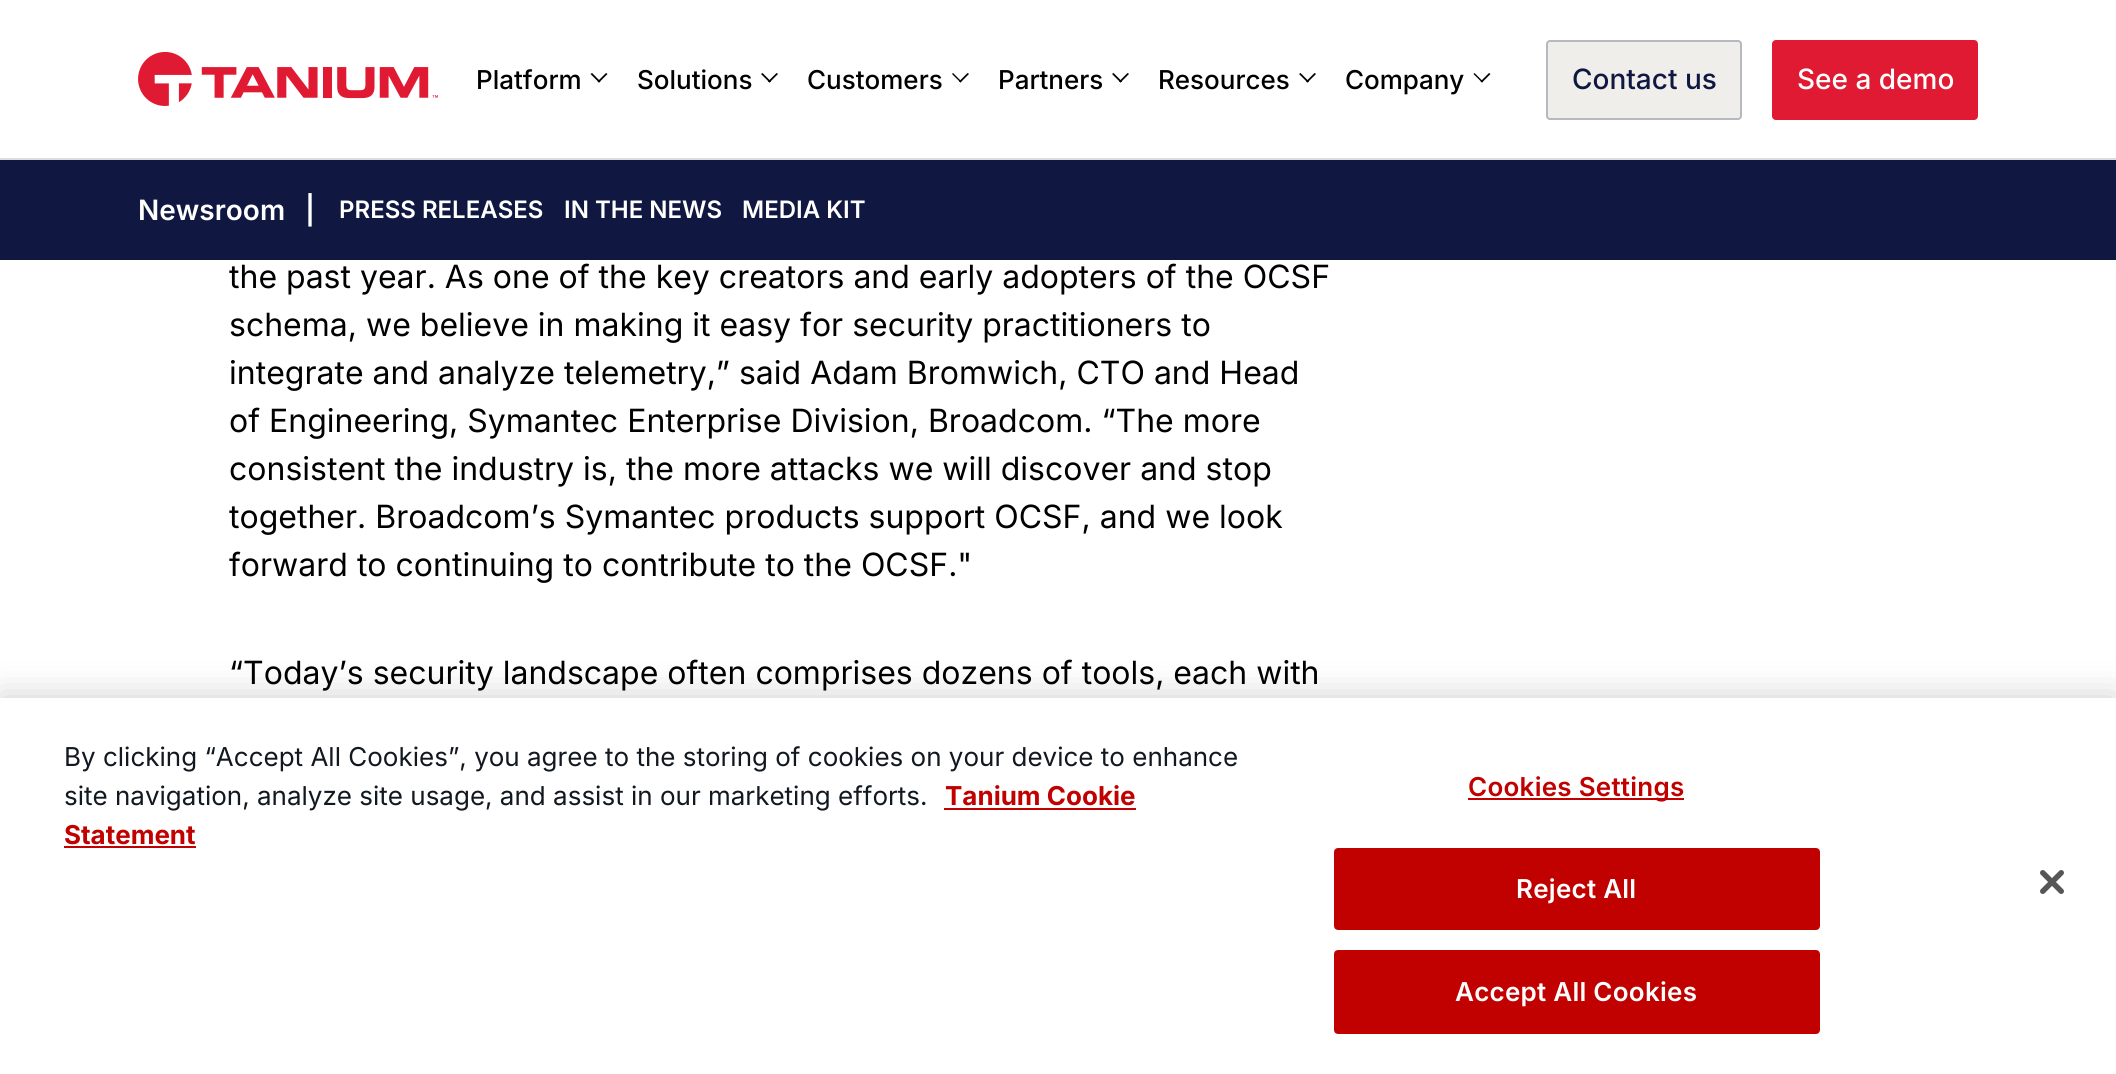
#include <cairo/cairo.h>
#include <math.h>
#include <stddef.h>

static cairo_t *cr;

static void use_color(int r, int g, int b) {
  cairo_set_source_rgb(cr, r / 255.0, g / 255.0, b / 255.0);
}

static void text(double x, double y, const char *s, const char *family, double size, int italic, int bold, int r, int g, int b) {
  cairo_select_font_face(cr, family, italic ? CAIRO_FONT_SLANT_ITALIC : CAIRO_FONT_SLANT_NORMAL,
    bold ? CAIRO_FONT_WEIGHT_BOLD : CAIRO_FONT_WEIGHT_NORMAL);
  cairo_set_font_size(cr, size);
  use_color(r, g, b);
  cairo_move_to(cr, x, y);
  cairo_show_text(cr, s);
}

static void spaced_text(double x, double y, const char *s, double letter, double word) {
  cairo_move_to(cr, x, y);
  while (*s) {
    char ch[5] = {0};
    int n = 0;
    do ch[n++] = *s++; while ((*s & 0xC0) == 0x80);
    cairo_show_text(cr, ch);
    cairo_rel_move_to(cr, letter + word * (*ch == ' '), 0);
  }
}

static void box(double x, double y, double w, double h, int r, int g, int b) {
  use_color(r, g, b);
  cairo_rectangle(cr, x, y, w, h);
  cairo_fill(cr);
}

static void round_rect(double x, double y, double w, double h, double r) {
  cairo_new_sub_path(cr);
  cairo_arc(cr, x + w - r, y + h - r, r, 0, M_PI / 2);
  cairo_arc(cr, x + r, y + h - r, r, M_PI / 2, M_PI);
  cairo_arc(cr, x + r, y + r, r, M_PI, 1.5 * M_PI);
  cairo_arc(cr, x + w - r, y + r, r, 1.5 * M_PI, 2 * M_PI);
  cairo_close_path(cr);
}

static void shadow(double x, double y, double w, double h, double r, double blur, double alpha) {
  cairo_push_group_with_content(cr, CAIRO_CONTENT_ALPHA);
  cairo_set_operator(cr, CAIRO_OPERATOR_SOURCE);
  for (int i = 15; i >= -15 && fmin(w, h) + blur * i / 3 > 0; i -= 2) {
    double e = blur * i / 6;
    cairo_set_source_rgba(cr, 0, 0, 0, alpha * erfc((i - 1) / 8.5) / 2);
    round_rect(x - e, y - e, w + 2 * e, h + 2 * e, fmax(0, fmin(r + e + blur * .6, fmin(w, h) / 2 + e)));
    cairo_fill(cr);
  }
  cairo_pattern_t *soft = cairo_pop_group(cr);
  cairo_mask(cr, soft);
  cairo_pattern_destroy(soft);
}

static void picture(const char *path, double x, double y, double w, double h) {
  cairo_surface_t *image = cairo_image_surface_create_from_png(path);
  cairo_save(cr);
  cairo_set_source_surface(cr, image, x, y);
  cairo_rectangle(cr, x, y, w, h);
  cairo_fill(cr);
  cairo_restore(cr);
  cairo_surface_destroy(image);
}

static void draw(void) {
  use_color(255, 255, 255);
  cairo_paint(cr);
  box(0, 158, 2116, 2, 220, 221, 217);
  picture("img_01.png", 138, 52, 300, 54);
  use_color(0, 0, 0);
  cairo_new_path(cr);
  cairo_move_to(cr, 597.5, 81.5);
  cairo_line_to(cr, 606, 73);
  cairo_line_to(cr, 607.5, 74);
  cairo_line_to(cr, 599, 82.5);
  cairo_close_path(cr);
  cairo_fill(cr);
  cairo_new_path(cr);
  cairo_move_to(cr, 590.5, 74);
  cairo_line_to(cr, 592, 73);
  cairo_line_to(cr, 600.5, 81.5);
  cairo_line_to(cr, 599, 82.5);
  cairo_close_path(cr);
  cairo_fill(cr);
  cairo_new_path(cr);
  cairo_move_to(cr, 768, 81.5);
  cairo_line_to(cr, 776.5, 73);
  cairo_line_to(cr, 778, 74);
  cairo_line_to(cr, 769.5, 82.5);
  cairo_close_path(cr);
  cairo_fill(cr);
  cairo_new_path(cr);
  cairo_move_to(cr, 761, 74);
  cairo_line_to(cr, 762.5, 73);
  cairo_line_to(cr, 771, 81.5);
  cairo_line_to(cr, 769.5, 82.5);
  cairo_close_path(cr);
  cairo_fill(cr);
  cairo_new_path(cr);
  cairo_move_to(cr, 959, 81.5);
  cairo_line_to(cr, 967.5, 73);
  cairo_line_to(cr, 969, 74);
  cairo_line_to(cr, 960.5, 82.5);
  cairo_close_path(cr);
  cairo_fill(cr);
  cairo_new_path(cr);
  cairo_move_to(cr, 952, 74);
  cairo_line_to(cr, 953, 73);
  cairo_line_to(cr, 961.5, 81.5);
  cairo_line_to(cr, 960.5, 82.5);
  cairo_close_path(cr);
  cairo_fill(cr);
  cairo_new_path(cr);
  cairo_move_to(cr, 1119, 81.5);
  cairo_line_to(cr, 1127.5, 73);
  cairo_line_to(cr, 1129, 74);
  cairo_line_to(cr, 1120.5, 82.5);
  cairo_close_path(cr);
  cairo_fill(cr);
  cairo_new_path(cr);
  cairo_move_to(cr, 1112, 74);
  cairo_line_to(cr, 1113.5, 73);
  cairo_line_to(cr, 1122, 81.5);
  cairo_line_to(cr, 1120.5, 82.5);
  cairo_close_path(cr);
  cairo_fill(cr);
  cairo_new_path(cr);
  cairo_move_to(cr, 1306, 81.5);
  cairo_line_to(cr, 1314.5, 73);
  cairo_line_to(cr, 1316, 74);
  cairo_line_to(cr, 1307.5, 82.5);
  cairo_close_path(cr);
  cairo_fill(cr);
  cairo_new_path(cr);
  cairo_move_to(cr, 1299, 74);
  cairo_line_to(cr, 1300.5, 73);
  cairo_line_to(cr, 1309, 81.5);
  cairo_line_to(cr, 1307.5, 82.5);
  cairo_close_path(cr);
  cairo_fill(cr);
  cairo_new_path(cr);
  cairo_move_to(cr, 1480.5, 81.5);
  cairo_line_to(cr, 1489, 73);
  cairo_line_to(cr, 1490.5, 74);
  cairo_line_to(cr, 1482, 82.5);
  cairo_close_path(cr);
  cairo_fill(cr);
  cairo_new_path(cr);
  cairo_move_to(cr, 1473.5, 74);
  cairo_line_to(cr, 1474.5, 73);
  cairo_line_to(cr, 1483, 81.5);
  cairo_line_to(cr, 1482, 82.5);
  cairo_close_path(cr);
  cairo_fill(cr);
  use_color(239, 238, 235);
  round_rect(1546, 40, 196, 80, 4);
  cairo_fill(cr);
  round_rect(1547, 41, 194, 78, 3);
  cairo_set_source_rgba(cr, 0.063, 0.094, 0.259, 0.25);
  cairo_stroke(cr);
  use_color(224, 26, 51);
  round_rect(1772, 40, 206, 80, 4);
  cairo_fill(cr);
  box(0, 160, 2116, 100, 16, 24, 66);
  use_color(0, 0, 0);
  shadow(0, 698, 2116, 376, 0, 18, 0.2);
  box(0, 698, 2116, 376, 255, 255, 255);
  box(944, 808, 192, 2, 193, 0, 0);
  box(64, 846, 132, 2, 193, 0, 0);
  box(1468, 798, 216, 2, 193, 0, 0);
  round_rect(1335, 849, 484, 80, 3);
  cairo_fill_preserve(cr);
  cairo_stroke(cr);
  round_rect(1335, 951, 484, 82, 3);
  cairo_fill_preserve(cr);
  cairo_stroke(cr);
  picture("img_02.png", 2040, 870, 24, 24);
  text(476, 89, "Platform", "Inter Medium", 26, 0, 0, 0, 0, 0);
  text(637, 89, "Solutions", "Inter Medium", 26, 0, 0, 0, 0, 0);
  text(807, 89, "Customers", "Inter Medium", 26, 0, 0, 0, 0, 0);
  text(998, 89, "Partners", "Inter Medium", 26, 0, 0, 0, 0, 0);
  text(1158, 89, "Resources", "Inter Medium", 26, 0, 0, 0, 0, 0);
  text(1345, 89, "Company", "Inter Medium", 26, 0, 0, 0, 0, 0);
  text(1572, 89, "Contact us", "Inter Medium", 28, 0, 0, 16, 24, 66);
  text(1797, 89, "See a demo", "Inter Medium", 28, 0, 0, 255, 255, 255);
  text(138, 220, "Newsroom", "Inter SemiBold", 28, 0, 0, 255, 255, 255);
  text(305, 220, "|", "Inter SemiBold", 28, 0, 0, 255, 255, 255);
  text(339, 218, "PRESS RELEASES", "Inter SemiBold", 24, 0, 0, 255, 255, 255);
  text(564, 218, "IN THE NEWS", "Inter SemiBold", 24, 0, 0, 255, 255, 255);
  text(742, 218, "MEDIA KIT", "Inter SemiBold", 24, 0, 0, 255, 255, 255);
  text(229, 288, "the past year. As one of the key creators and early adopters of the OCSF", "Inter", 32, 0, 0, 0, 0, 0);
  text(229, 336, "schema, we believe in making it easy for security practitioners to", "Inter", 32, 0, 0, 0, 0, 0);
  text(229, 384, "integrate and analyze telemetry,” said Adam Bromwich, CTO and Head", "Inter", 32, 0, 0, 0, 0, 0);
  text(229, 432, "of Engineering, Symantec Enterprise Division, Broadcom. “The more", "Inter", 32, 0, 0, 0, 0, 0);
  text(229, 480, "consistent the industry is, the more attacks we will discover and stop", "Inter", 32, 0, 0, 0, 0, 0);
  text(229, 528, "together. Broadcom’s Symantec products support OCSF, and we look", "Inter", 32, 0, 0, 0, 0, 0);
  text(229, 576, "forward to continuing to contribute to the OCSF.\"", "Inter", 32, 0, 0, 0, 0, 0);
  text(229, 684, "“Today’s security landscape often comprises dozens of tools, each with", "Inter", 32, 0, 0, 0, 0, 0);
  text(64, 766, "By clicking “Accept All Cookies”, you agree to the storing of cookies on your device to enhance", "Inter", 26, 0, 0, 18, 24, 32);
  text(64, 805, "site navigation, analyze site usage, and assist in our marketing efforts.", "Inter", 26, 0, 0, 18, 24, 32);
  text(945, 805, "Tanium Cookie", "Inter", 26, 0, 1, 193, 0, 0);
  text(64, 844, "Statement", "Inter", 26, 0, 1, 193, 0, 0);
  cairo_select_font_face(cr, "Inter SemiBold", CAIRO_FONT_SLANT_NORMAL, CAIRO_FONT_WEIGHT_NORMAL);
  spaced_text(1468, 796, "Cookies Settings", 0.25, 0);
  use_color(255, 255, 255);
  spaced_text(1516, 898, "Reject All", 0.25, 0);
  spaced_text(1455, 1001, "Accept All Cookies", 0.25, 0);
}

int main(void) {
  cairo_surface_t *surface = cairo_image_surface_create(CAIRO_FORMAT_RGB24, 2116, 1074);
  cr = cairo_create(surface);
  cairo_font_options_t *options = cairo_font_options_create();
  cairo_font_options_set_hint_metrics(options, CAIRO_HINT_METRICS_OFF);
  cairo_font_options_set_hint_style(options, CAIRO_HINT_STYLE_NONE);
  cairo_set_font_options(cr, options);
  cairo_set_miter_limit(cr, 4);
  draw();
  cairo_surface_write_to_png(surface, "out.png");
  cairo_font_options_destroy(options);
  cairo_destroy(cr);
  cairo_surface_destroy(surface);
  return 0;
}
